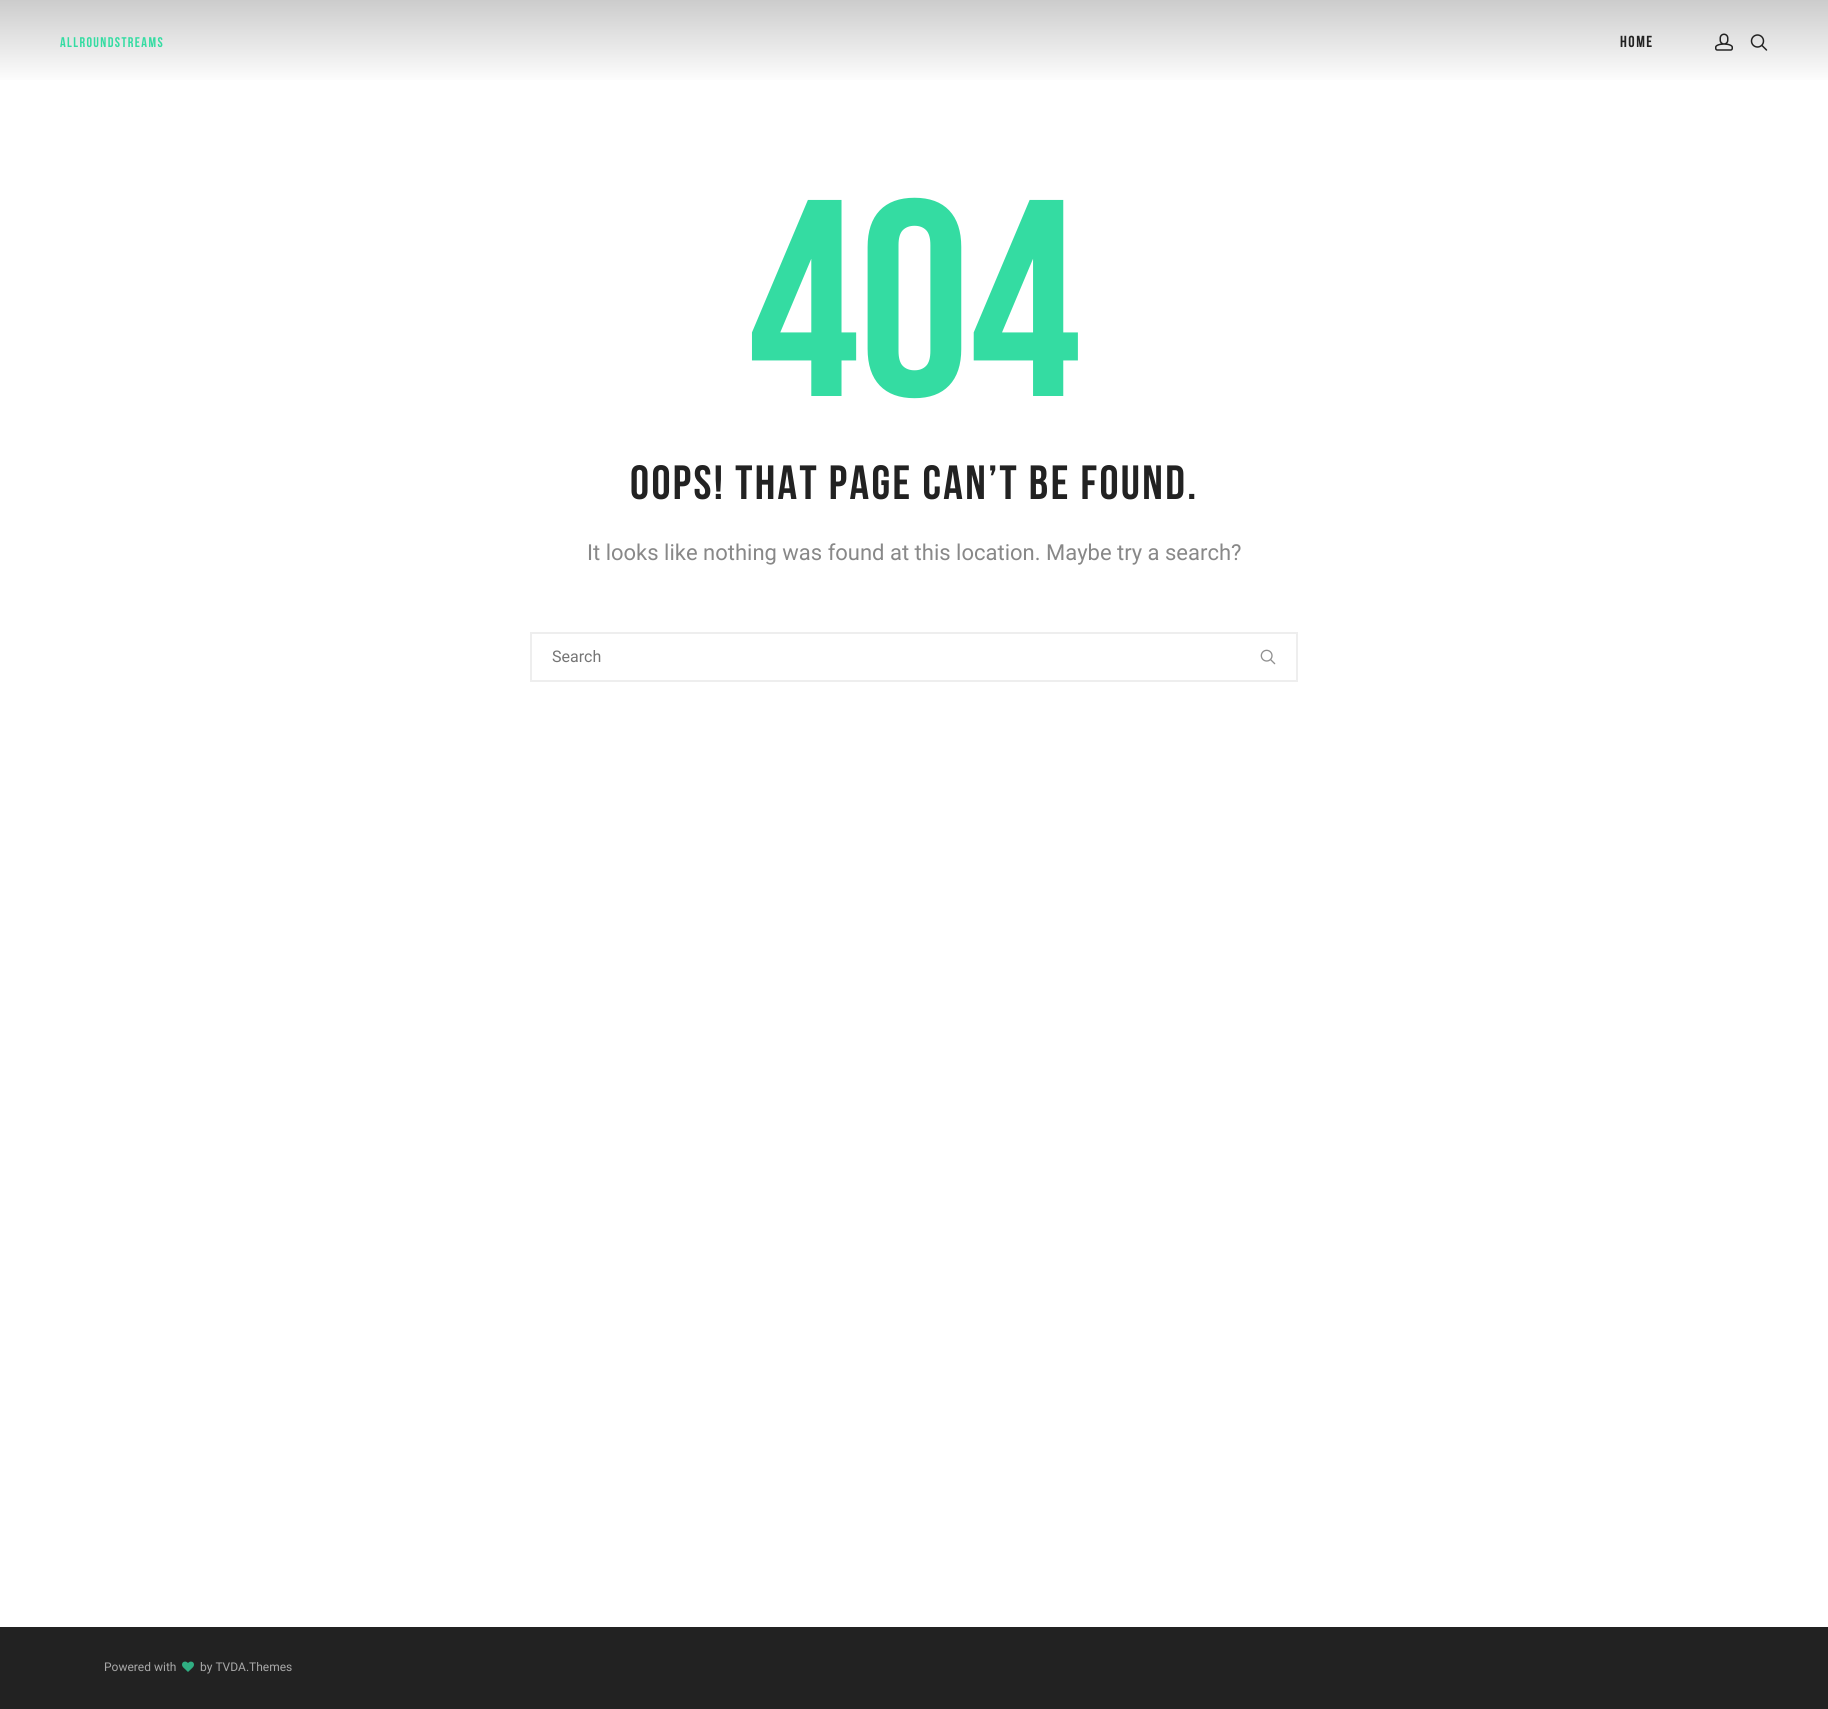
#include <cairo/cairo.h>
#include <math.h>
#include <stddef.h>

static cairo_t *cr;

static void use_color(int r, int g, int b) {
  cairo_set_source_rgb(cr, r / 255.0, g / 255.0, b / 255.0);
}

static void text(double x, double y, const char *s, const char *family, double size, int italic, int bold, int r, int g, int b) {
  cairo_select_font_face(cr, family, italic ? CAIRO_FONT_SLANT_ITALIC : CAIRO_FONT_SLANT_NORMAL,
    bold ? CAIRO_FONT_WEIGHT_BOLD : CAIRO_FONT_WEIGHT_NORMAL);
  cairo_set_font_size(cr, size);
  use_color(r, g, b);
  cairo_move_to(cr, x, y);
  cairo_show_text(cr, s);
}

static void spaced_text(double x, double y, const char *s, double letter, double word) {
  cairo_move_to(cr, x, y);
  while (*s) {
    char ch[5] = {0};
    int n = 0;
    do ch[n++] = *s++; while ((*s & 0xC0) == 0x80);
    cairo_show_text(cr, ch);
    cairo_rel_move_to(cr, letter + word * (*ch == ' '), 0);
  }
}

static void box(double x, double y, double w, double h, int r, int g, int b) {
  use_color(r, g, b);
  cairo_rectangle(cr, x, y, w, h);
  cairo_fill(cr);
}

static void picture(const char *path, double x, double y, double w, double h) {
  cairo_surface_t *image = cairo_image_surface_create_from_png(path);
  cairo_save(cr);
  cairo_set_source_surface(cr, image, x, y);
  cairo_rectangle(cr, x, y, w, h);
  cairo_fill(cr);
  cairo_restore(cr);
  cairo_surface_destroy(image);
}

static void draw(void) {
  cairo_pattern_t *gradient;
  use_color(255, 255, 255);
  cairo_paint(cr);
  gradient = cairo_pattern_create_linear(914, 84, 914, 0);
  cairo_pattern_add_color_stop_rgba(gradient, 0, 1, 1, 1, 1);
  cairo_pattern_add_color_stop_rgba(gradient, 1, 0.8, 0.8, 0.8, 1);
  cairo_set_source(cr, gradient);
  cairo_pattern_destroy(gradient);
  cairo_rectangle(cr, 0, 0, 1828, 80);
  cairo_fill(cr);
  picture("img_01.png", 1715, 33, 18, 18);
  picture("img_02.png", 1750, 34, 18, 17);
  cairo_rectangle(cr, 531, 633, 766, 48);
  use_color(238, 238, 238);
  cairo_stroke(cr);
  picture("img_03.png", 1260, 649, 16, 16);
  box(0, 1627, 1828, 82, 34, 34, 34);
  picture("img_04.png", 182, 1661, 12, 11);
  cairo_select_font_face(cr, "Bebas Neue", CAIRO_FONT_SLANT_NORMAL, CAIRO_FONT_WEIGHT_BOLD);
  cairo_set_font_size(cr, 14);
  use_color(52, 220, 162);
  spaced_text(60, 47, "ALLROUNDSTREAMS", 1.4, 0);
  cairo_set_font_size(cr, 16);
  use_color(34, 34, 34);
  spaced_text(1620, 47, "HOME", 1.5, 0);
  text(748, 396, "404", "Bebas Neue", 280, 0, 1, 52, 220, 162);
  cairo_set_font_size(cr, 48);
  use_color(34, 34, 34);
  spaced_text(630, 499, "OOPS! THAT PAGE CAN’T BE FOUND.", 2.4, 0);
  text(587, 560, "It looks like nothing was found at this location. Maybe try a search?", "Roboto", 22, 0, 0, 136, 136, 136);
  text(552, 662, "Search", "Roboto", 16, 0, 0, 117, 117, 117);
  text(104, 1671, "Powered with", "Roboto", 12, 0, 0, 168, 168, 168);
  text(200, 1671, "by TVDA.Themes", "Roboto", 12, 0, 0, 168, 168, 168);
}

int main(void) {
  cairo_surface_t *surface = cairo_image_surface_create(CAIRO_FORMAT_RGB24, 1828, 1709);
  cr = cairo_create(surface);
  cairo_font_options_t *options = cairo_font_options_create();
  cairo_font_options_set_hint_metrics(options, CAIRO_HINT_METRICS_OFF);
  cairo_font_options_set_hint_style(options, CAIRO_HINT_STYLE_NONE);
  cairo_set_font_options(cr, options);
  cairo_set_miter_limit(cr, 4);
  draw();
  cairo_surface_write_to_png(surface, "out.png");
  cairo_font_options_destroy(options);
  cairo_destroy(cr);
  cairo_surface_destroy(surface);
  return 0;
}
